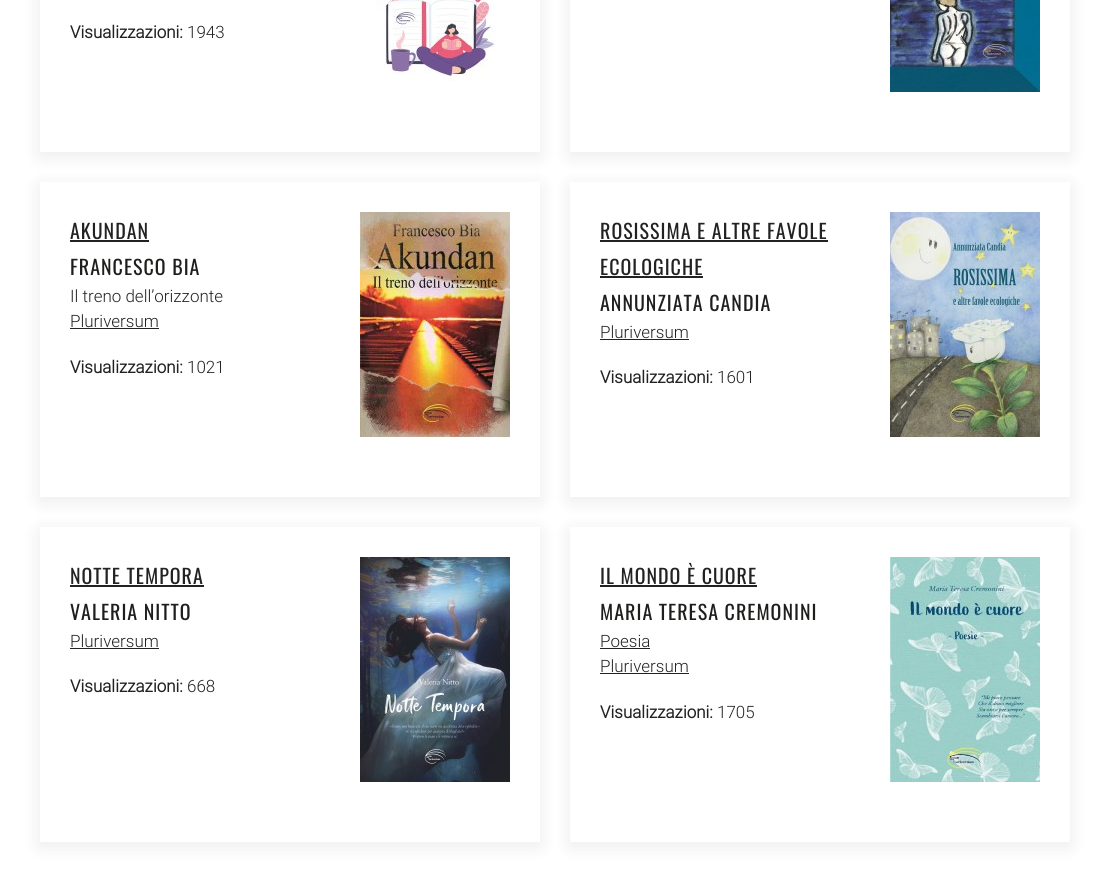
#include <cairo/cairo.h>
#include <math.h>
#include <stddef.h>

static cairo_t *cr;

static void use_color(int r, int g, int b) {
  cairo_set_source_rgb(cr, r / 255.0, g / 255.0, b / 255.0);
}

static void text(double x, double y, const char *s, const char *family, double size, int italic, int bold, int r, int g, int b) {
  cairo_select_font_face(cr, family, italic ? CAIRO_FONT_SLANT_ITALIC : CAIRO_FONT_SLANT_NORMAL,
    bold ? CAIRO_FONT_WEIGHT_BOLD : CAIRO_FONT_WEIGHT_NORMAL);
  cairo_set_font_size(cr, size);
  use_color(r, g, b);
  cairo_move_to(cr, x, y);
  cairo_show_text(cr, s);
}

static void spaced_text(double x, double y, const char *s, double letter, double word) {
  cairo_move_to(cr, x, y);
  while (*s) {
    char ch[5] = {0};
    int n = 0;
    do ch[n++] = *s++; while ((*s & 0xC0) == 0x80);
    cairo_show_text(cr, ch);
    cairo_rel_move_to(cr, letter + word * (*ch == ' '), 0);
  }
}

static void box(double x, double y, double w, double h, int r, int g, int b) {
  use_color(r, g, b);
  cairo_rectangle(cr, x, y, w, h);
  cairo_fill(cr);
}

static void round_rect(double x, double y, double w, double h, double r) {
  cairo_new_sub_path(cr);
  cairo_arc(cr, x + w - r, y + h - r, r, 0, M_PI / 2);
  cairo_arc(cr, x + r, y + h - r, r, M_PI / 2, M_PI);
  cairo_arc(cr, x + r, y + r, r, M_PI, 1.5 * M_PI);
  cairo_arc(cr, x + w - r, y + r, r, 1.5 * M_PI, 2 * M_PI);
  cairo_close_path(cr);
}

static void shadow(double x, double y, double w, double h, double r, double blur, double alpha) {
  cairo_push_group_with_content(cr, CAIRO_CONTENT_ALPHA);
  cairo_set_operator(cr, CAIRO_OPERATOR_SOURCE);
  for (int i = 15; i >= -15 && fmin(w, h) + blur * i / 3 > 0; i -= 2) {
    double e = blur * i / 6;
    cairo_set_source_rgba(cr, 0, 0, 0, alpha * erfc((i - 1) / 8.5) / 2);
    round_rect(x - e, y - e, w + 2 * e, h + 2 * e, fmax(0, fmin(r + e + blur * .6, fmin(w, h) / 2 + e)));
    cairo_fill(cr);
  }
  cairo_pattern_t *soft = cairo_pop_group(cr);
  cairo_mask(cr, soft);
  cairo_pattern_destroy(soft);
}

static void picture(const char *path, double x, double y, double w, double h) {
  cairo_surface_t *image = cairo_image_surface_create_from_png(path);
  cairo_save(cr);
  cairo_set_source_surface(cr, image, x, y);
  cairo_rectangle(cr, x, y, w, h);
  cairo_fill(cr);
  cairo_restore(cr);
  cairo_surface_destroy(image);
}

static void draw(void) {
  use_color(255, 255, 255);
  cairo_paint(cr);
  cairo_save(cr);
  cairo_set_fill_rule(cr, CAIRO_FILL_RULE_EVEN_ODD);
  cairo_new_path(cr);
  cairo_move_to(cr, 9, 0);
  cairo_line_to(cr, 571, 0);
  cairo_line_to(cr, 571, 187);
  cairo_line_to(cr, 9, 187);
  cairo_close_path(cr);
  cairo_move_to(cr, 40, -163);
  cairo_line_to(cr, 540, -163);
  cairo_line_to(cr, 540, 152);
  cairo_line_to(cr, 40, 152);
  cairo_close_path(cr);
  cairo_clip(cr);
  use_color(0, 0, 0);
  shadow(40, -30, 500, 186, 0, 10, 0.08);
  cairo_restore(cr);
  picture("img_01.png", 376, 0, 120, 82);
  cairo_save(cr);
  cairo_set_fill_rule(cr, CAIRO_FILL_RULE_EVEN_ODD);
  cairo_new_path(cr);
  cairo_move_to(cr, 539, 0);
  cairo_line_to(cr, 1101, 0);
  cairo_line_to(cr, 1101, 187);
  cairo_line_to(cr, 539, 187);
  cairo_close_path(cr);
  cairo_move_to(cr, 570, -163);
  cairo_line_to(cr, 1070, -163);
  cairo_line_to(cr, 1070, 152);
  cairo_line_to(cr, 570, 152);
  cairo_close_path(cr);
  cairo_clip(cr);
  use_color(0, 0, 0);
  shadow(570, -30, 500, 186, 0, 10, 0.08);
  cairo_restore(cr);
  picture("img_02.png", 890, 0, 150, 92);
  cairo_save(cr);
  cairo_set_fill_rule(cr, CAIRO_FILL_RULE_EVEN_ODD);
  cairo_new_path(cr);
  cairo_move_to(cr, 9, 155);
  cairo_line_to(cr, 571, 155);
  cairo_line_to(cr, 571, 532);
  cairo_line_to(cr, 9, 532);
  cairo_close_path(cr);
  cairo_move_to(cr, 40, 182);
  cairo_line_to(cr, 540, 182);
  cairo_line_to(cr, 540, 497);
  cairo_line_to(cr, 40, 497);
  cairo_close_path(cr);
  cairo_clip(cr);
  use_color(0, 0, 0);
  shadow(40, 186, 500, 315, 0, 10, 0.08);
  cairo_restore(cr);
  box(70, 240, 79, 2, 34, 34, 34);
  box(70, 328, 89, 1, 34, 34, 34);
  picture("img_03.png", 360, 212, 150, 225);
  cairo_save(cr);
  cairo_set_fill_rule(cr, CAIRO_FILL_RULE_EVEN_ODD);
  cairo_new_path(cr);
  cairo_move_to(cr, 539, 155);
  cairo_line_to(cr, 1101, 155);
  cairo_line_to(cr, 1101, 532);
  cairo_line_to(cr, 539, 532);
  cairo_close_path(cr);
  cairo_move_to(cr, 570, 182);
  cairo_line_to(cr, 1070, 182);
  cairo_line_to(cr, 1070, 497);
  cairo_line_to(cr, 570, 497);
  cairo_close_path(cr);
  cairo_clip(cr);
  use_color(0, 0, 0);
  shadow(570, 186, 500, 315, 0, 10, 0.08);
  cairo_restore(cr);
  box(600, 240, 228, 2, 34, 34, 34);
  box(600, 276, 103, 2, 34, 34, 34);
  box(600, 339, 89, 1, 34, 34, 34);
  picture("img_04.png", 890, 212, 150, 225);
  cairo_save(cr);
  cairo_set_fill_rule(cr, CAIRO_FILL_RULE_EVEN_ODD);
  cairo_new_path(cr);
  cairo_move_to(cr, 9, 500);
  cairo_line_to(cr, 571, 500);
  cairo_line_to(cr, 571, 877);
  cairo_line_to(cr, 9, 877);
  cairo_close_path(cr);
  cairo_move_to(cr, 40, 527);
  cairo_line_to(cr, 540, 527);
  cairo_line_to(cr, 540, 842);
  cairo_line_to(cr, 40, 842);
  cairo_close_path(cr);
  cairo_clip(cr);
  use_color(0, 0, 0);
  shadow(40, 531, 500, 315, 0, 10, 0.08);
  cairo_restore(cr);
  box(70, 585, 134, 2, 34, 34, 34);
  box(70, 648, 89, 1, 34, 34, 34);
  picture("img_05.png", 360, 557, 150, 225);
  cairo_save(cr);
  cairo_set_fill_rule(cr, CAIRO_FILL_RULE_EVEN_ODD);
  cairo_new_path(cr);
  cairo_move_to(cr, 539, 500);
  cairo_line_to(cr, 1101, 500);
  cairo_line_to(cr, 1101, 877);
  cairo_line_to(cr, 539, 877);
  cairo_close_path(cr);
  cairo_move_to(cr, 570, 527);
  cairo_line_to(cr, 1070, 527);
  cairo_line_to(cr, 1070, 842);
  cairo_line_to(cr, 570, 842);
  cairo_close_path(cr);
  cairo_clip(cr);
  use_color(0, 0, 0);
  shadow(570, 531, 500, 315, 0, 10, 0.08);
  cairo_restore(cr);
  box(600, 585, 157, 2, 34, 34, 34);
  box(600, 648, 50, 1, 34, 34, 34);
  box(600, 673, 89, 1, 34, 34, 34);
  picture("img_06.png", 890, 557, 150, 225);
  text(70, 38, "Visualizzazioni:", "Roboto", 17, 0, 1, 34, 34, 34);
  text(187, 38, "1943", "Roboto Light", 17, 0, 0, 34, 34, 34);
  cairo_select_font_face(cr, "Oswald", CAIRO_FONT_SLANT_NORMAL, CAIRO_FONT_WEIGHT_NORMAL);
  cairo_set_font_size(cr, 20);
  spaced_text(70, 239, "AKUNDAN", 1, 0);
  use_color(30, 31, 28);
  spaced_text(70, 275, "FRANCESCO BIA", 1, 0);
  text(70, 302, "Il treno dell’orizzonte", "Roboto Light", 17, 0, 0, 34, 34, 34);
  text(70, 327, "Pluriversum", "Roboto Light", 17, 0, 0, 34, 34, 34);
  text(70, 373, "Visualizzazioni:", "Roboto", 17, 0, 1, 34, 34, 34);
  text(187, 373, "1021", "Roboto Light", 17, 0, 0, 34, 34, 34);
  cairo_select_font_face(cr, "Oswald", CAIRO_FONT_SLANT_NORMAL, CAIRO_FONT_WEIGHT_NORMAL);
  cairo_set_font_size(cr, 20);
  spaced_text(600, 239, "ROSISSIMA E ALTRE FAVOLE", 1, 0);
  spaced_text(600, 275, "ECOLOGICHE", 1, 0);
  use_color(30, 31, 28);
  spaced_text(600, 311, "ANNUNZIATA CANDIA", 1, 0);
  text(600, 338, "Pluriversum", "Roboto Light", 17, 0, 0, 34, 34, 34);
  text(600, 383, "Visualizzazioni:", "Roboto", 17, 0, 1, 34, 34, 34);
  text(717, 383, "1601", "Roboto Light", 17, 0, 0, 34, 34, 34);
  cairo_select_font_face(cr, "Oswald", CAIRO_FONT_SLANT_NORMAL, CAIRO_FONT_WEIGHT_NORMAL);
  cairo_set_font_size(cr, 20);
  spaced_text(70, 584, "NOTTE TEMPORA", 1, 0);
  use_color(30, 31, 28);
  spaced_text(70, 620, "VALERIA NITTO", 1, 0);
  text(70, 647, "Pluriversum", "Roboto Light", 17, 0, 0, 34, 34, 34);
  text(70, 692, "Visualizzazioni:", "Roboto", 17, 0, 1, 34, 34, 34);
  text(187, 692, "668", "Roboto Light", 17, 0, 0, 34, 34, 34);
  cairo_select_font_face(cr, "Oswald", CAIRO_FONT_SLANT_NORMAL, CAIRO_FONT_WEIGHT_NORMAL);
  cairo_set_font_size(cr, 20);
  spaced_text(600, 584, "IL MONDO È CUORE", 1, 0);
  use_color(30, 31, 28);
  spaced_text(600, 620, "MARIA TERESA CREMONINI", 1, 0);
  text(600, 647, "Poesia", "Roboto Light", 17, 0, 0, 34, 34, 34);
  text(600, 672, "Pluriversum", "Roboto Light", 17, 0, 0, 34, 34, 34);
  text(600, 718, "Visualizzazioni:", "Roboto", 17, 0, 1, 34, 34, 34);
  text(717, 718, "1705", "Roboto Light", 17, 0, 0, 34, 34, 34);
}

int main(void) {
  cairo_surface_t *surface = cairo_image_surface_create(CAIRO_FORMAT_RGB24, 1110, 884);
  cr = cairo_create(surface);
  cairo_font_options_t *options = cairo_font_options_create();
  cairo_font_options_set_hint_metrics(options, CAIRO_HINT_METRICS_OFF);
  cairo_font_options_set_hint_style(options, CAIRO_HINT_STYLE_NONE);
  cairo_set_font_options(cr, options);
  cairo_set_miter_limit(cr, 4);
  draw();
  cairo_surface_write_to_png(surface, "out.png");
  cairo_font_options_destroy(options);
  cairo_destroy(cr);
  cairo_surface_destroy(surface);
  return 0;
}
